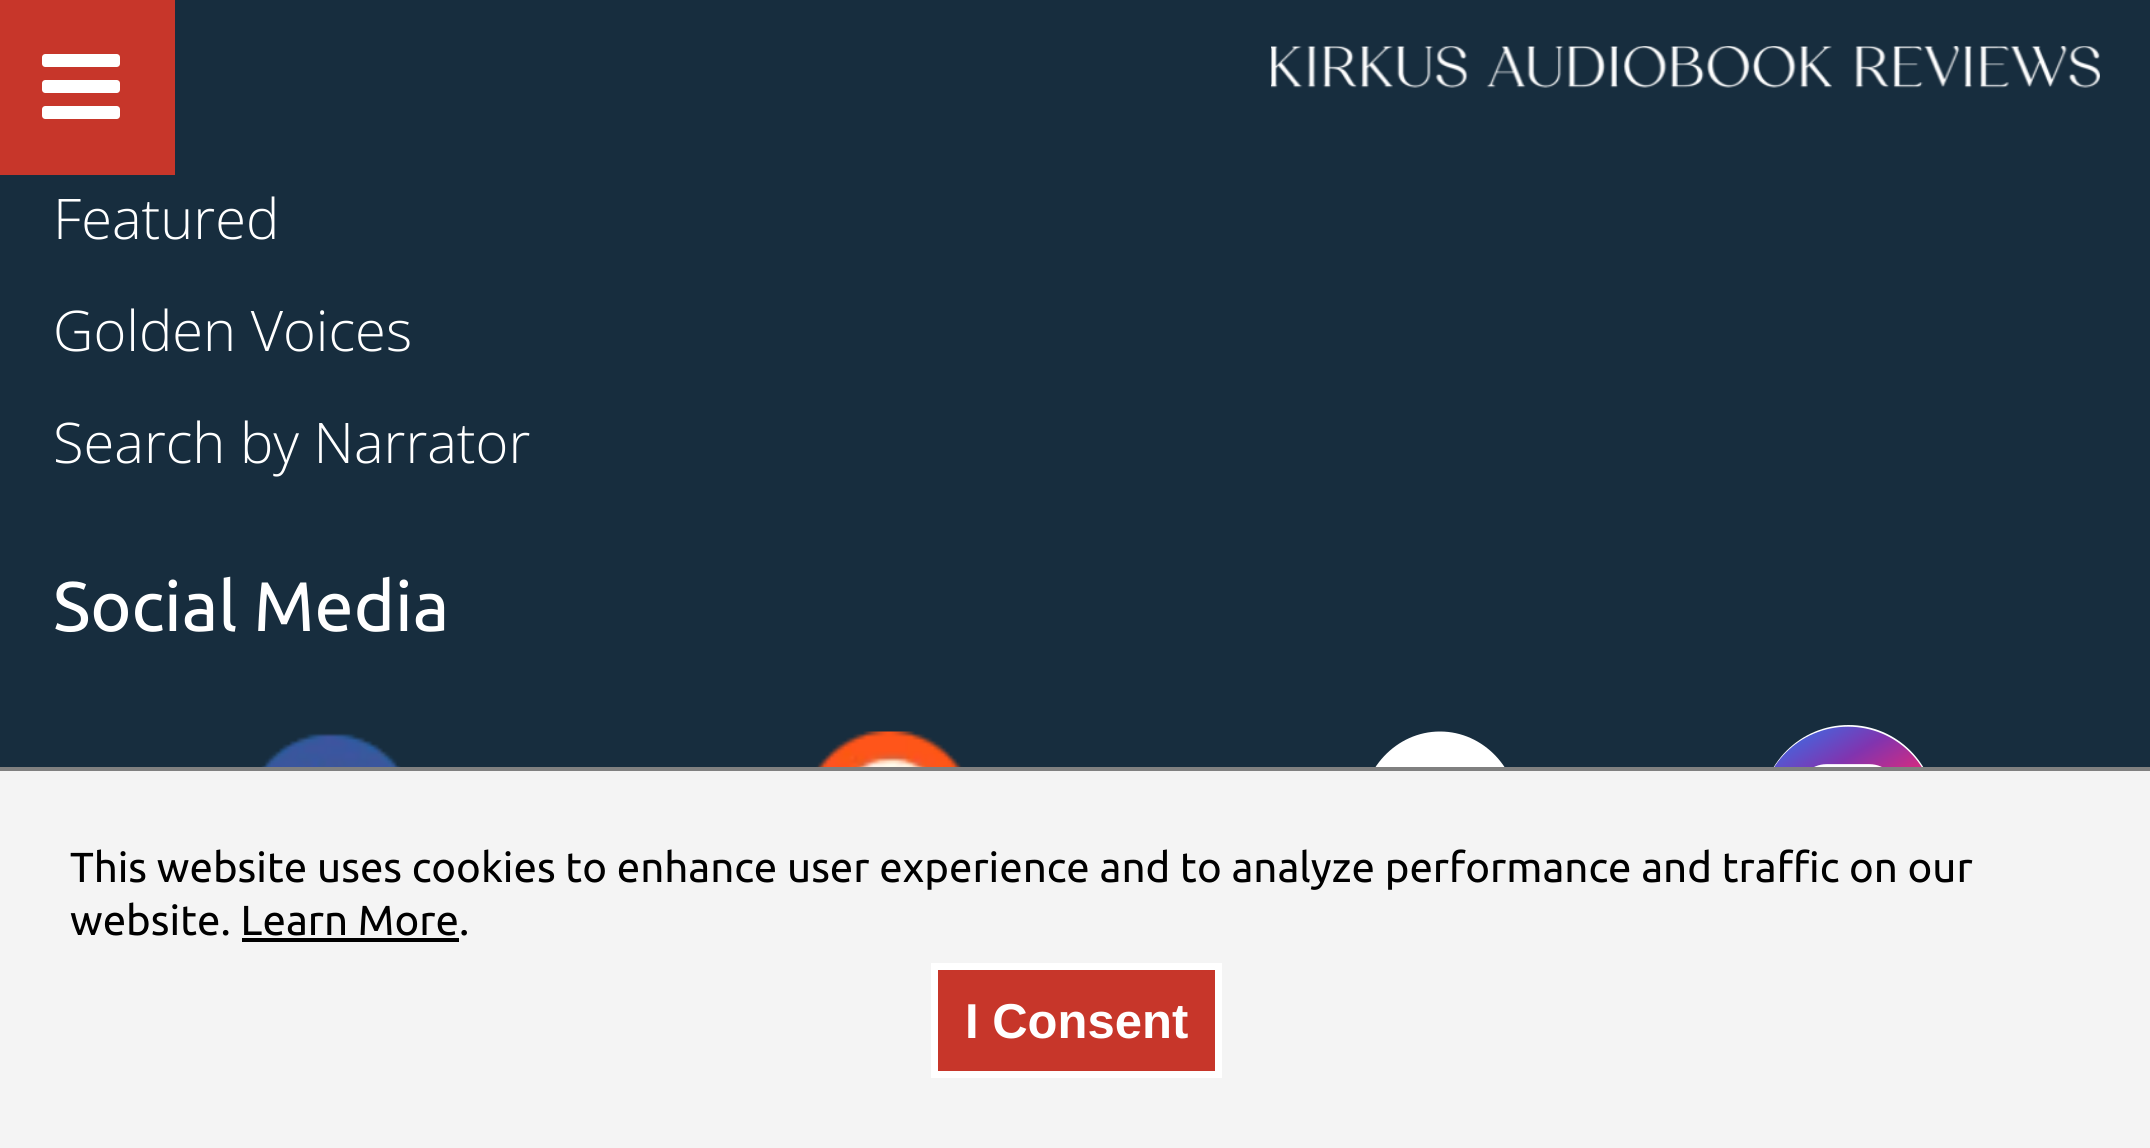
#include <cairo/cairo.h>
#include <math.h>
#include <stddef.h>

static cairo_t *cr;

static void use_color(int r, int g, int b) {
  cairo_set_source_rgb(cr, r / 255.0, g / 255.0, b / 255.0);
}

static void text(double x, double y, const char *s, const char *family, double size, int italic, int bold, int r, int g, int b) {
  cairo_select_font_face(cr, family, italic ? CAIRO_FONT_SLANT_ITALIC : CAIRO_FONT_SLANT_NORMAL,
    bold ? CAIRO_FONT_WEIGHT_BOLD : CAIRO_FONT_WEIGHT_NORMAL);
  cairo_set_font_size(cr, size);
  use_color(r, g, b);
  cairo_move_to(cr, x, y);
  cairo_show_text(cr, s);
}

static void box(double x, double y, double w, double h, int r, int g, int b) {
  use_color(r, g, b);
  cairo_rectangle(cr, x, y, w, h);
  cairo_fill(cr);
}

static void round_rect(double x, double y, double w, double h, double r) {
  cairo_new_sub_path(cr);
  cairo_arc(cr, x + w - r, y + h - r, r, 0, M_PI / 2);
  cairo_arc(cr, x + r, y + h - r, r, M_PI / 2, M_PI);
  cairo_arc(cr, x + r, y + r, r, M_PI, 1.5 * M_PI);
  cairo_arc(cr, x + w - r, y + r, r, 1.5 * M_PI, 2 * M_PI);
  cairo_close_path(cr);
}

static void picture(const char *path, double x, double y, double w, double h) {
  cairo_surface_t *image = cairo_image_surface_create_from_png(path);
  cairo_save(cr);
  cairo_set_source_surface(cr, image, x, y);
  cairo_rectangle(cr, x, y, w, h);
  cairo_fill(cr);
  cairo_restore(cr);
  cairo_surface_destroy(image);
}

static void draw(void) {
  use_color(23, 45, 62);
  cairo_paint(cr);
  box(0, 0, 175, 175, 199, 54, 42);
  picture("img_01.png", 42, 54, 78, 65);
  picture("img_02.png", 1271, 46, 829, 42);
  picture("img_03.png", 261, 733, 140, 34);
  picture("img_04.png", 816, 731, 147, 36);
  use_color(255, 255, 255);
  cairo_new_path(cr);
  cairo_move_to(cr, 1440, 731.5);
  cairo_curve_to(cr, 1483.5, 731.5, 1519, 769, 1519, 815.5);
  cairo_curve_to(cr, 1519, 862, 1483.5, 899.5, 1440, 899.5);
  cairo_curve_to(cr, 1396.5, 899.5, 1361, 862, 1361, 815.5);
  cairo_curve_to(cr, 1361, 769, 1396.5, 731.5, 1440, 731.5);
  cairo_close_path(cr);
  cairo_fill(cr);
  round_rect(1761, 725, 175, 178, 87.5);
  cairo_fill(cr);
  picture("img_05.png", 1774, 726, 148, 41);
  box(0, 771, 2150, 377, 244, 244, 244);
  box(0, 767, 2150, 4, 128, 128, 128);
  box(242, 938, 217, 4, 0, 0, 0);
  use_color(199, 54, 42);
  cairo_rectangle(cr, 934.5, 966.5, 284, 108);
  cairo_fill_preserve(cr);
  use_color(255, 255, 255);
  cairo_set_line_width(cr, 7);
  cairo_stroke(cr);
  text(53, 239, "Featured", "Open Sans Light", 56, 0, 0, 255, 255, 255);
  text(53, 351, "Golden Voices", "Open Sans Light", 56, 0, 0, 255, 255, 255);
  text(53, 463, "Search by Narrator", "Open Sans Light", 56, 0, 0, 255, 255, 255);
  text(53, 631, "Social Media", "Ubuntu", 70, 0, 0, 255, 255, 255);
  text(70, 882, "This website uses cookies to enhance user experience and to analyze performance and traffic on our", "Ubuntu", 42, 0, 0, 0, 0, 0);
  text(70, 935, "website. Learn More.", "Ubuntu", 42, 0, 0, 0, 0, 0);
  text(965, 1038, "I Consent", "Liberation Sans", 49, 0, 1, 255, 255, 255);
}

int main(void) {
  cairo_surface_t *surface = cairo_image_surface_create(CAIRO_FORMAT_RGB24, 2150, 1148);
  cr = cairo_create(surface);
  cairo_font_options_t *options = cairo_font_options_create();
  cairo_font_options_set_hint_metrics(options, CAIRO_HINT_METRICS_OFF);
  cairo_font_options_set_hint_style(options, CAIRO_HINT_STYLE_NONE);
  cairo_set_font_options(cr, options);
  cairo_set_miter_limit(cr, 4);
  draw();
  cairo_surface_write_to_png(surface, "out.png");
  cairo_font_options_destroy(options);
  cairo_destroy(cr);
  cairo_surface_destroy(surface);
  return 0;
}
